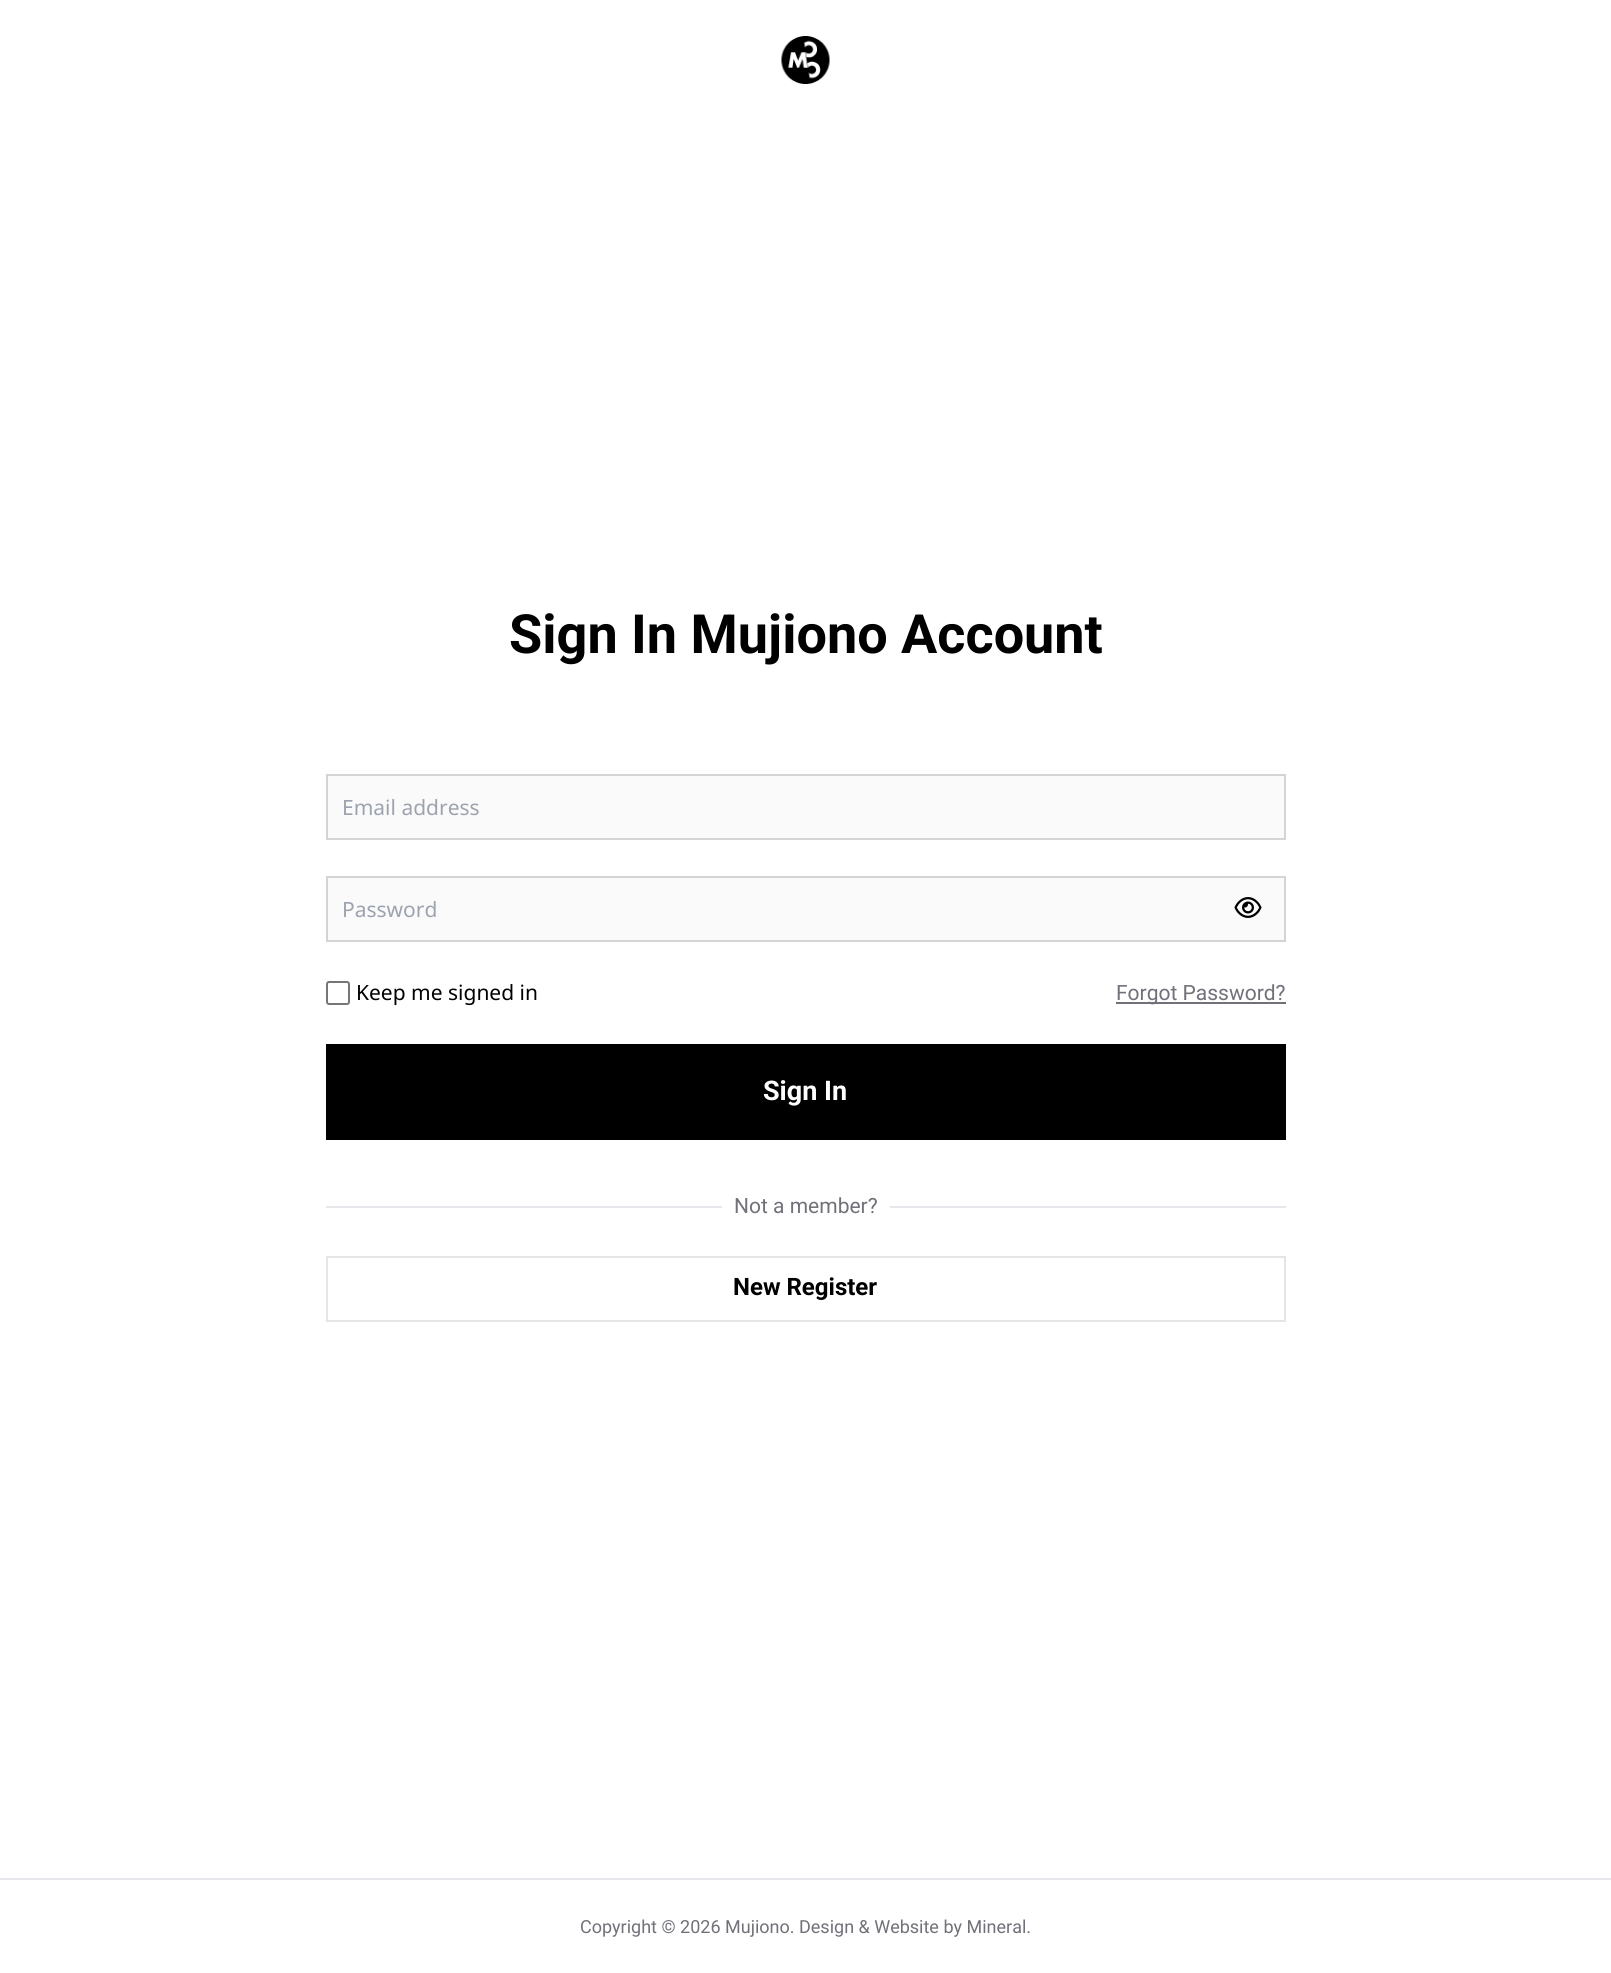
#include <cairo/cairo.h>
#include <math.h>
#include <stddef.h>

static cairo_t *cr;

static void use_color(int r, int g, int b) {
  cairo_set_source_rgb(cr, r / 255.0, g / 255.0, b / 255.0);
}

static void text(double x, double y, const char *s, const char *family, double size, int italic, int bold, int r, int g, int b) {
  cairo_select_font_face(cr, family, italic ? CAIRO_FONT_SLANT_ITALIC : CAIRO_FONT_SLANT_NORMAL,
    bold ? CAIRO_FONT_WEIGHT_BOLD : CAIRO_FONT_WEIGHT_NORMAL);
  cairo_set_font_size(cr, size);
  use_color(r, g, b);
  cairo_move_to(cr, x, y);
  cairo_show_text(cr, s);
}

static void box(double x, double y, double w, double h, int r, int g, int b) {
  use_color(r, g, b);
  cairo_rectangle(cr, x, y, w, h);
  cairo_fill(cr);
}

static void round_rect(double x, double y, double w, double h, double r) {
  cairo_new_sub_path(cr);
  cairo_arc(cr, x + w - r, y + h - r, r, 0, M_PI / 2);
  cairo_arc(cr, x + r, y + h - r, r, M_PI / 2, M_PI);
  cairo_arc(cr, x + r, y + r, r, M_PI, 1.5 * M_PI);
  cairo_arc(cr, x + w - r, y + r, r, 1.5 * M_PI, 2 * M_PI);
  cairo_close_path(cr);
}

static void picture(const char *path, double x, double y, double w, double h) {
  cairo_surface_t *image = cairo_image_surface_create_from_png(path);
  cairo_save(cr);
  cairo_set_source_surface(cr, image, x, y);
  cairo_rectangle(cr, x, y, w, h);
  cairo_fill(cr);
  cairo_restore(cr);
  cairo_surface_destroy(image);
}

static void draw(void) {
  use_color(255, 255, 255);
  cairo_paint(cr);
  picture("img_01.png", 781, 36, 49, 48);
  use_color(250, 250, 250);
  cairo_rectangle(cr, 327, 775, 958, 64);
  cairo_fill_preserve(cr);
  use_color(212, 212, 212);
  cairo_stroke(cr);
  use_color(250, 250, 250);
  cairo_rectangle(cr, 327, 877, 958, 64);
  cairo_fill_preserve(cr);
  use_color(212, 212, 212);
  cairo_stroke(cr);
  picture("img_02.png", 1234, 897, 28, 21);
  round_rect(327, 982, 22, 22, 2);
  use_color(118, 118, 118);
  cairo_stroke(cr);
  box(1116, 1002, 170, 2, 113, 113, 122);
  box(326, 1044, 960, 96, 0, 0, 0);
  box(326, 1206, 960, 2, 229, 231, 235);
  box(722, 1206, 168, 2, 255, 255, 255);
  cairo_rectangle(cr, 327, 1257, 958, 64);
  use_color(229, 229, 229);
  cairo_stroke(cr);
  box(0, 1878, 1611, 2, 229, 231, 235);
  text(509, 653, "Sign In Mujiono Account", "Roboto", 54, 0, 1, 0, 0, 0);
  text(342, 815, "Email address", "Noto Sans", 21, 0, 0, 156, 163, 175);
  text(342, 917, "Password", "Noto Sans", 21, 0, 0, 156, 163, 175);
  text(356, 1000, "Keep me signed in", "Noto Sans", 21, 0, 0, 0, 0, 0);
  text(1116, 1000, "Forgot Password?", "Roboto", 21, 0, 0, 113, 113, 122);
  text(763, 1100, "Sign In", "Roboto", 27, 0, 1, 255, 255, 255);
  text(734, 1213, "Not a member?", "Roboto", 21, 0, 0, 113, 113, 122);
  text(733, 1295, "New Register", "Roboto", 24, 0, 1, 0, 0, 0);
  text(580, 1933, "Copyright © 2026 Mujiono. Design & Website by Mineral.", "Roboto", 18, 0, 0, 113, 113, 122);
}

int main(void) {
  cairo_surface_t *surface = cairo_image_surface_create(CAIRO_FORMAT_RGB24, 1611, 1973);
  cr = cairo_create(surface);
  cairo_font_options_t *options = cairo_font_options_create();
  cairo_font_options_set_hint_metrics(options, CAIRO_HINT_METRICS_OFF);
  cairo_font_options_set_hint_style(options, CAIRO_HINT_STYLE_NONE);
  cairo_set_font_options(cr, options);
  cairo_set_miter_limit(cr, 4);
  draw();
  cairo_surface_write_to_png(surface, "out.png");
  cairo_font_options_destroy(options);
  cairo_destroy(cr);
  cairo_surface_destroy(surface);
  return 0;
}
